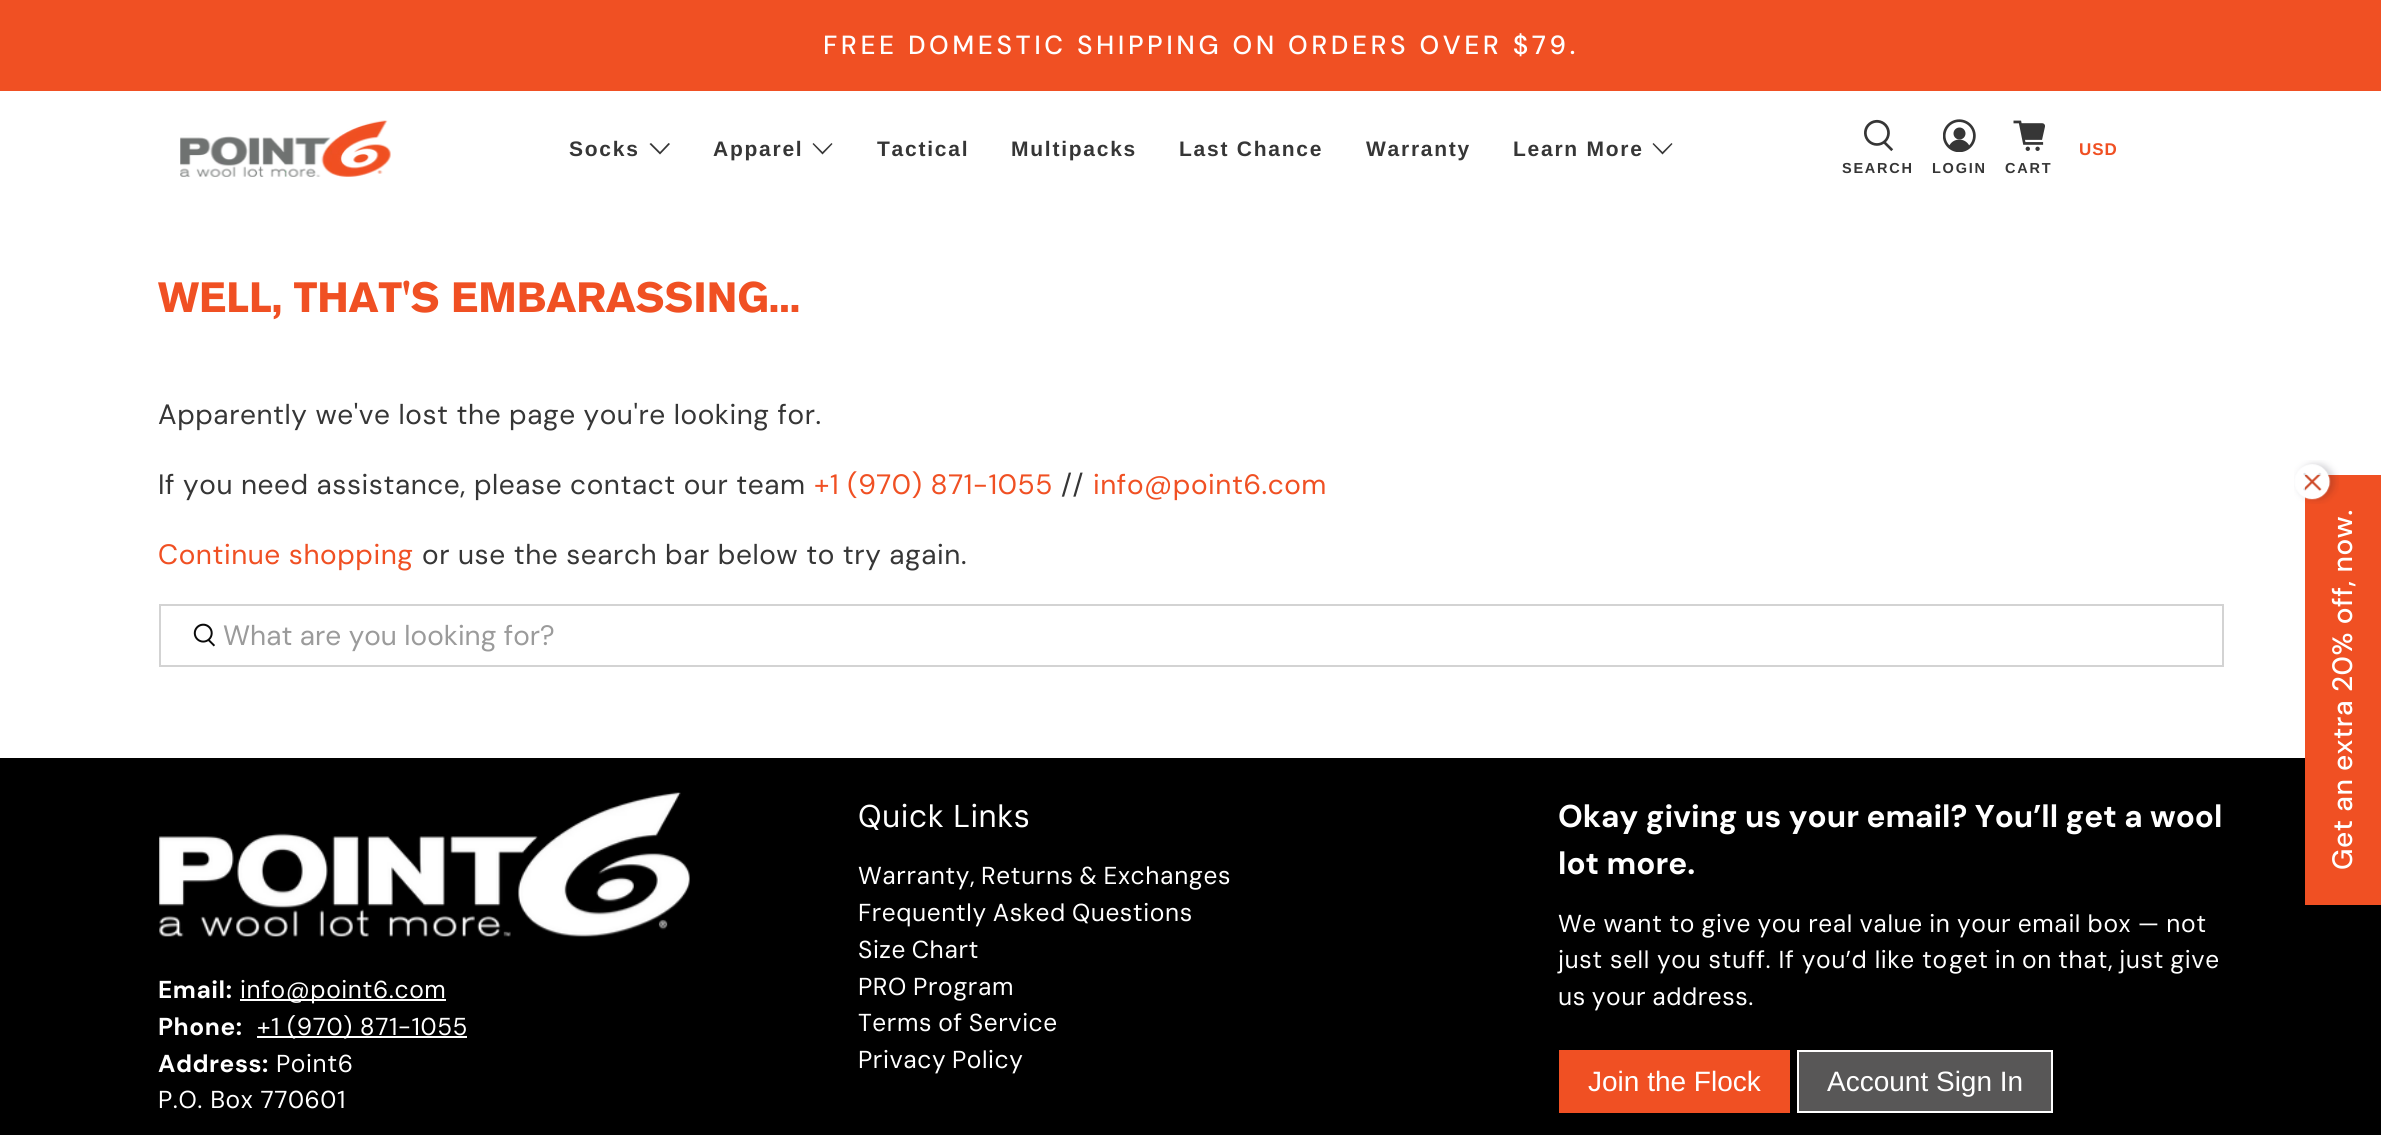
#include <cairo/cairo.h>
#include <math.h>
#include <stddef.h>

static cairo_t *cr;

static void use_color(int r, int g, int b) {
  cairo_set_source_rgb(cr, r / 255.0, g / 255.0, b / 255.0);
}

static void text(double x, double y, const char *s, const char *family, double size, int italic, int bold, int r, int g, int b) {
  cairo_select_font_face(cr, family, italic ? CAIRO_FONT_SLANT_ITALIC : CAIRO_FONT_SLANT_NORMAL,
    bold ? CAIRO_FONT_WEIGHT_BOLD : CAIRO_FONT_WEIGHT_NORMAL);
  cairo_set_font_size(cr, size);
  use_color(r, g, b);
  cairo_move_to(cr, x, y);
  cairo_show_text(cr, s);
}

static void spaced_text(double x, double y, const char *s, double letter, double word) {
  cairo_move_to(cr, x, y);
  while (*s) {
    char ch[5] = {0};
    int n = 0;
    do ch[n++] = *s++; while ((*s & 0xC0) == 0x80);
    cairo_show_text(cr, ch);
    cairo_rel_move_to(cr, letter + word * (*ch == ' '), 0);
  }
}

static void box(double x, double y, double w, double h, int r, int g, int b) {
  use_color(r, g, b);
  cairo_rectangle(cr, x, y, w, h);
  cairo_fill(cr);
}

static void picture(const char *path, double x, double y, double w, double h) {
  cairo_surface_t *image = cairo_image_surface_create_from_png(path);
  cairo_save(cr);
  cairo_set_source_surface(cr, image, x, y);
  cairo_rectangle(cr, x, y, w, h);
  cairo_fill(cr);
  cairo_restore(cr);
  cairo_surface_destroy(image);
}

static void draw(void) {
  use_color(255, 255, 255);
  cairo_paint(cr);
  box(0, 0, 2381, 91, 240, 80, 35);
  picture("img_01.png", 180, 120, 211, 57);
  use_color(54, 54, 54);
  cairo_new_path(cr);
  cairo_move_to(cr, 660, 154.5);
  cairo_line_to(cr, 649.5, 144);
  cairo_line_to(cr, 651, 143);
  cairo_line_to(cr, 660, 152);
  cairo_line_to(cr, 668.5, 143);
  cairo_line_to(cr, 670, 144);
  cairo_close_path(cr);
  cairo_fill(cr);
  cairo_new_path(cr);
  cairo_move_to(cr, 822.5, 154.5);
  cairo_line_to(cr, 812.5, 144);
  cairo_line_to(cr, 813.5, 143);
  cairo_line_to(cr, 822.5, 152);
  cairo_line_to(cr, 831.5, 143);
  cairo_line_to(cr, 832.5, 144);
  cairo_close_path(cr);
  cairo_fill(cr);
  cairo_new_path(cr);
  cairo_move_to(cr, 1662.5, 154.5);
  cairo_line_to(cr, 1652.5, 144);
  cairo_line_to(cr, 1653.5, 143);
  cairo_line_to(cr, 1662.5, 152);
  cairo_line_to(cr, 1671.5, 143);
  cairo_line_to(cr, 1672.5, 144);
  cairo_close_path(cr);
  cairo_fill(cr);
  picture("img_02.png", 1864, 119, 30, 33);
  picture("img_03.png", 1943, 119, 33, 33);
  picture("img_04.png", 2013, 120, 32, 31);
  cairo_rectangle(cr, 160, 605, 2063, 61);
  use_color(211, 211, 211);
  cairo_stroke(cr);
  picture("img_05.png", 193, 623, 22, 24);
  box(0, 758, 2381, 377, 0, 0, 0);
  box(2305, 475, 76, 430, 240, 80, 35);
  picture("img_06.png", 2294, 460, 45, 44);
  picture("img_07.png", 159, 792, 531, 145);
  box(240, 999, 206, 2, 255, 255, 255);
  box(257, 1036, 210, 2, 255, 255, 255);
  box(1559, 1050, 231, 63, 240, 80, 35);
  use_color(88, 87, 87);
  cairo_rectangle(cr, 1798, 1051, 254, 61);
  cairo_fill_preserve(cr);
  use_color(255, 255, 255);
  cairo_stroke(cr);
  cairo_select_font_face(cr, "DM Sans Medium", CAIRO_FONT_SLANT_NORMAL, CAIRO_FONT_WEIGHT_NORMAL);
  cairo_set_font_size(cr, 26.25);
  spaced_text(823, 54, "FREE DOMESTIC SHIPPING ON ORDERS OVER $79.", 3.5, 0);
  cairo_select_font_face(cr, "Liberation Sans", CAIRO_FONT_SLANT_NORMAL, CAIRO_FONT_WEIGHT_BOLD);
  cairo_set_font_size(cr, 21);
  use_color(54, 54, 54);
  spaced_text(569, 156, "Socks", 1.75, 0);
  spaced_text(713, 156, "Apparel", 1.75, 0);
  spaced_text(877, 156, "Tactical", 1.75, 0);
  spaced_text(1011, 156, "Multipacks", 1.75, 0);
  spaced_text(1179, 156, "Last Chance", 1.75, 0);
  spaced_text(1366, 156, "Warranty", 1.75, 0);
  spaced_text(1513, 156, "Learn More", 1.75, 0);
  cairo_set_font_size(cr, 17);
  use_color(240, 80, 35);
  spaced_text(2079, 155, "USD", 1, 0);
  cairo_set_font_size(cr, 14.5);
  use_color(54, 54, 54);
  spaced_text(1842, 173, "SEARCH", 1.75, 0);
  spaced_text(1932, 173, "LOGIN", 1.75, 0);
  spaced_text(2005, 173, "CART", 1.75, 0);
  text(158, 312, "WELL, THAT'S EMBARASSING...", "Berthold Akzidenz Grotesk", 42, 0, 1, 240, 80, 35);
  cairo_select_font_face(cr, "DM Sans", CAIRO_FONT_SLANT_NORMAL, CAIRO_FONT_WEIGHT_NORMAL);
  cairo_set_font_size(cr, 28);
  use_color(54, 54, 54);
  spaced_text(158, 424, "Apparently we've lost the page you're looking for.", 0.55, 0);
  spaced_text(158, 494, "If you need assistance, please contact our team", 0.55, 0);
  use_color(240, 80, 35);
  spaced_text(814, 494, "+1 (970) 871-1055", 0.55, 0);
  use_color(54, 54, 54);
  spaced_text(1061, 494, "//", 0.55, 0);
  use_color(240, 80, 35);
  spaced_text(1093, 494, "info@point6.com", 0.55, 0);
  spaced_text(158, 564, "Continue shopping", 0.55, 0);
  use_color(54, 54, 54);
  spaced_text(422, 564, "or use the search bar below to try again.", 0.55, 0);
  text(223, 645, "What are you looking for?", "DM Sans", 28, 0, 0, 155, 155, 155);
  cairo_select_font_face(cr, "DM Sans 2 Medium", CAIRO_FONT_SLANT_NORMAL, CAIRO_FONT_WEIGHT_NORMAL);
  use_color(255, 255, 255);
  cairo_save(cr);
  cairo_translate(cr, 2352, 870);
  cairo_rotate(cr, -90 * M_PI / 180);
  spaced_text(0, 0, "Get an extra 20% off, now.", 0.55, 0);
  cairo_restore(cr);
  cairo_select_font_face(cr, "DM Sans", CAIRO_FONT_SLANT_NORMAL, CAIRO_FONT_WEIGHT_BOLD);
  cairo_set_font_size(cr, 24.5);
  spaced_text(158, 998, "Email:", 0.55, 0);
  cairo_select_font_face(cr, "DM Sans 2", CAIRO_FONT_SLANT_NORMAL, CAIRO_FONT_WEIGHT_NORMAL);
  spaced_text(240, 998, "info@point6.com", 0.55, 0);
  cairo_select_font_face(cr, "DM Sans", CAIRO_FONT_SLANT_NORMAL, CAIRO_FONT_WEIGHT_BOLD);
  spaced_text(158, 1035, "Phone:", 0.55, 0);
  cairo_select_font_face(cr, "DM Sans 2", CAIRO_FONT_SLANT_NORMAL, CAIRO_FONT_WEIGHT_NORMAL);
  spaced_text(257, 1035, "+1 (970) 871-1055", 0.55, 0);
  cairo_select_font_face(cr, "DM Sans", CAIRO_FONT_SLANT_NORMAL, CAIRO_FONT_WEIGHT_BOLD);
  spaced_text(158, 1072, "Address:", 0.55, 0);
  cairo_select_font_face(cr, "DM Sans 2", CAIRO_FONT_SLANT_NORMAL, CAIRO_FONT_WEIGHT_NORMAL);
  spaced_text(276, 1072, "Point6", 0.55, 0);
  spaced_text(158, 1108, "P.O. Box 770601", 0.55, 0);
  cairo_set_font_size(cr, 31.5);
  spaced_text(858, 827, "Quick Links", 0.55, 0);
  cairo_set_font_size(cr, 24.5);
  spaced_text(858, 884, "Warranty, Returns & Exchanges", 0.55, -1.5);
  spaced_text(858, 921, "Frequently Asked Questions", 0.55, -1);
  spaced_text(858, 958, "Size Chart", 0.55, -1.5);
  spaced_text(858, 995, "PRO Program", 0.55, -1);
  spaced_text(858, 1031, "Terms of Service", 0.55, -1);
  spaced_text(858, 1068, "Privacy Policy", 0.55, -1.5);
  text(1558, 827, "Okay giving us your email? You’ll get a wool", "DM Sans 2", 31.5, 0, 1, 255, 255, 255);
  text(1558, 874, "lot more.", "DM Sans 2", 31.5, 0, 1, 255, 255, 255);
  cairo_select_font_face(cr, "DM Sans 2", CAIRO_FONT_SLANT_NORMAL, CAIRO_FONT_WEIGHT_NORMAL);
  cairo_set_font_size(cr, 24.5);
  spaced_text(1558, 932, "We want to give you real value in your email box — not", 0.55, -0.5);
  spaced_text(1558, 968, "just sell you stuff. If you’d like to", 0.55, 0.25);
  spaced_text(1949, 968, "get in on that, just give", 0.55, -1);
  spaced_text(1558, 1005, "us your address.", 0.55, -1);
  text(1588, 1091, "Join the Flock", "Liberation Sans", 28, 0, 0, 255, 255, 255);
  text(1827, 1091, "Account Sign In", "Liberation Sans", 28, 0, 0, 255, 255, 255);
}

int main(void) {
  cairo_surface_t *surface = cairo_image_surface_create(CAIRO_FORMAT_RGB24, 2381, 1135);
  cr = cairo_create(surface);
  cairo_font_options_t *options = cairo_font_options_create();
  cairo_font_options_set_hint_metrics(options, CAIRO_HINT_METRICS_OFF);
  cairo_font_options_set_hint_style(options, CAIRO_HINT_STYLE_NONE);
  cairo_set_font_options(cr, options);
  cairo_set_miter_limit(cr, 4);
  draw();
  cairo_surface_write_to_png(surface, "out.png");
  cairo_font_options_destroy(options);
  cairo_destroy(cr);
  cairo_surface_destroy(surface);
  return 0;
}
